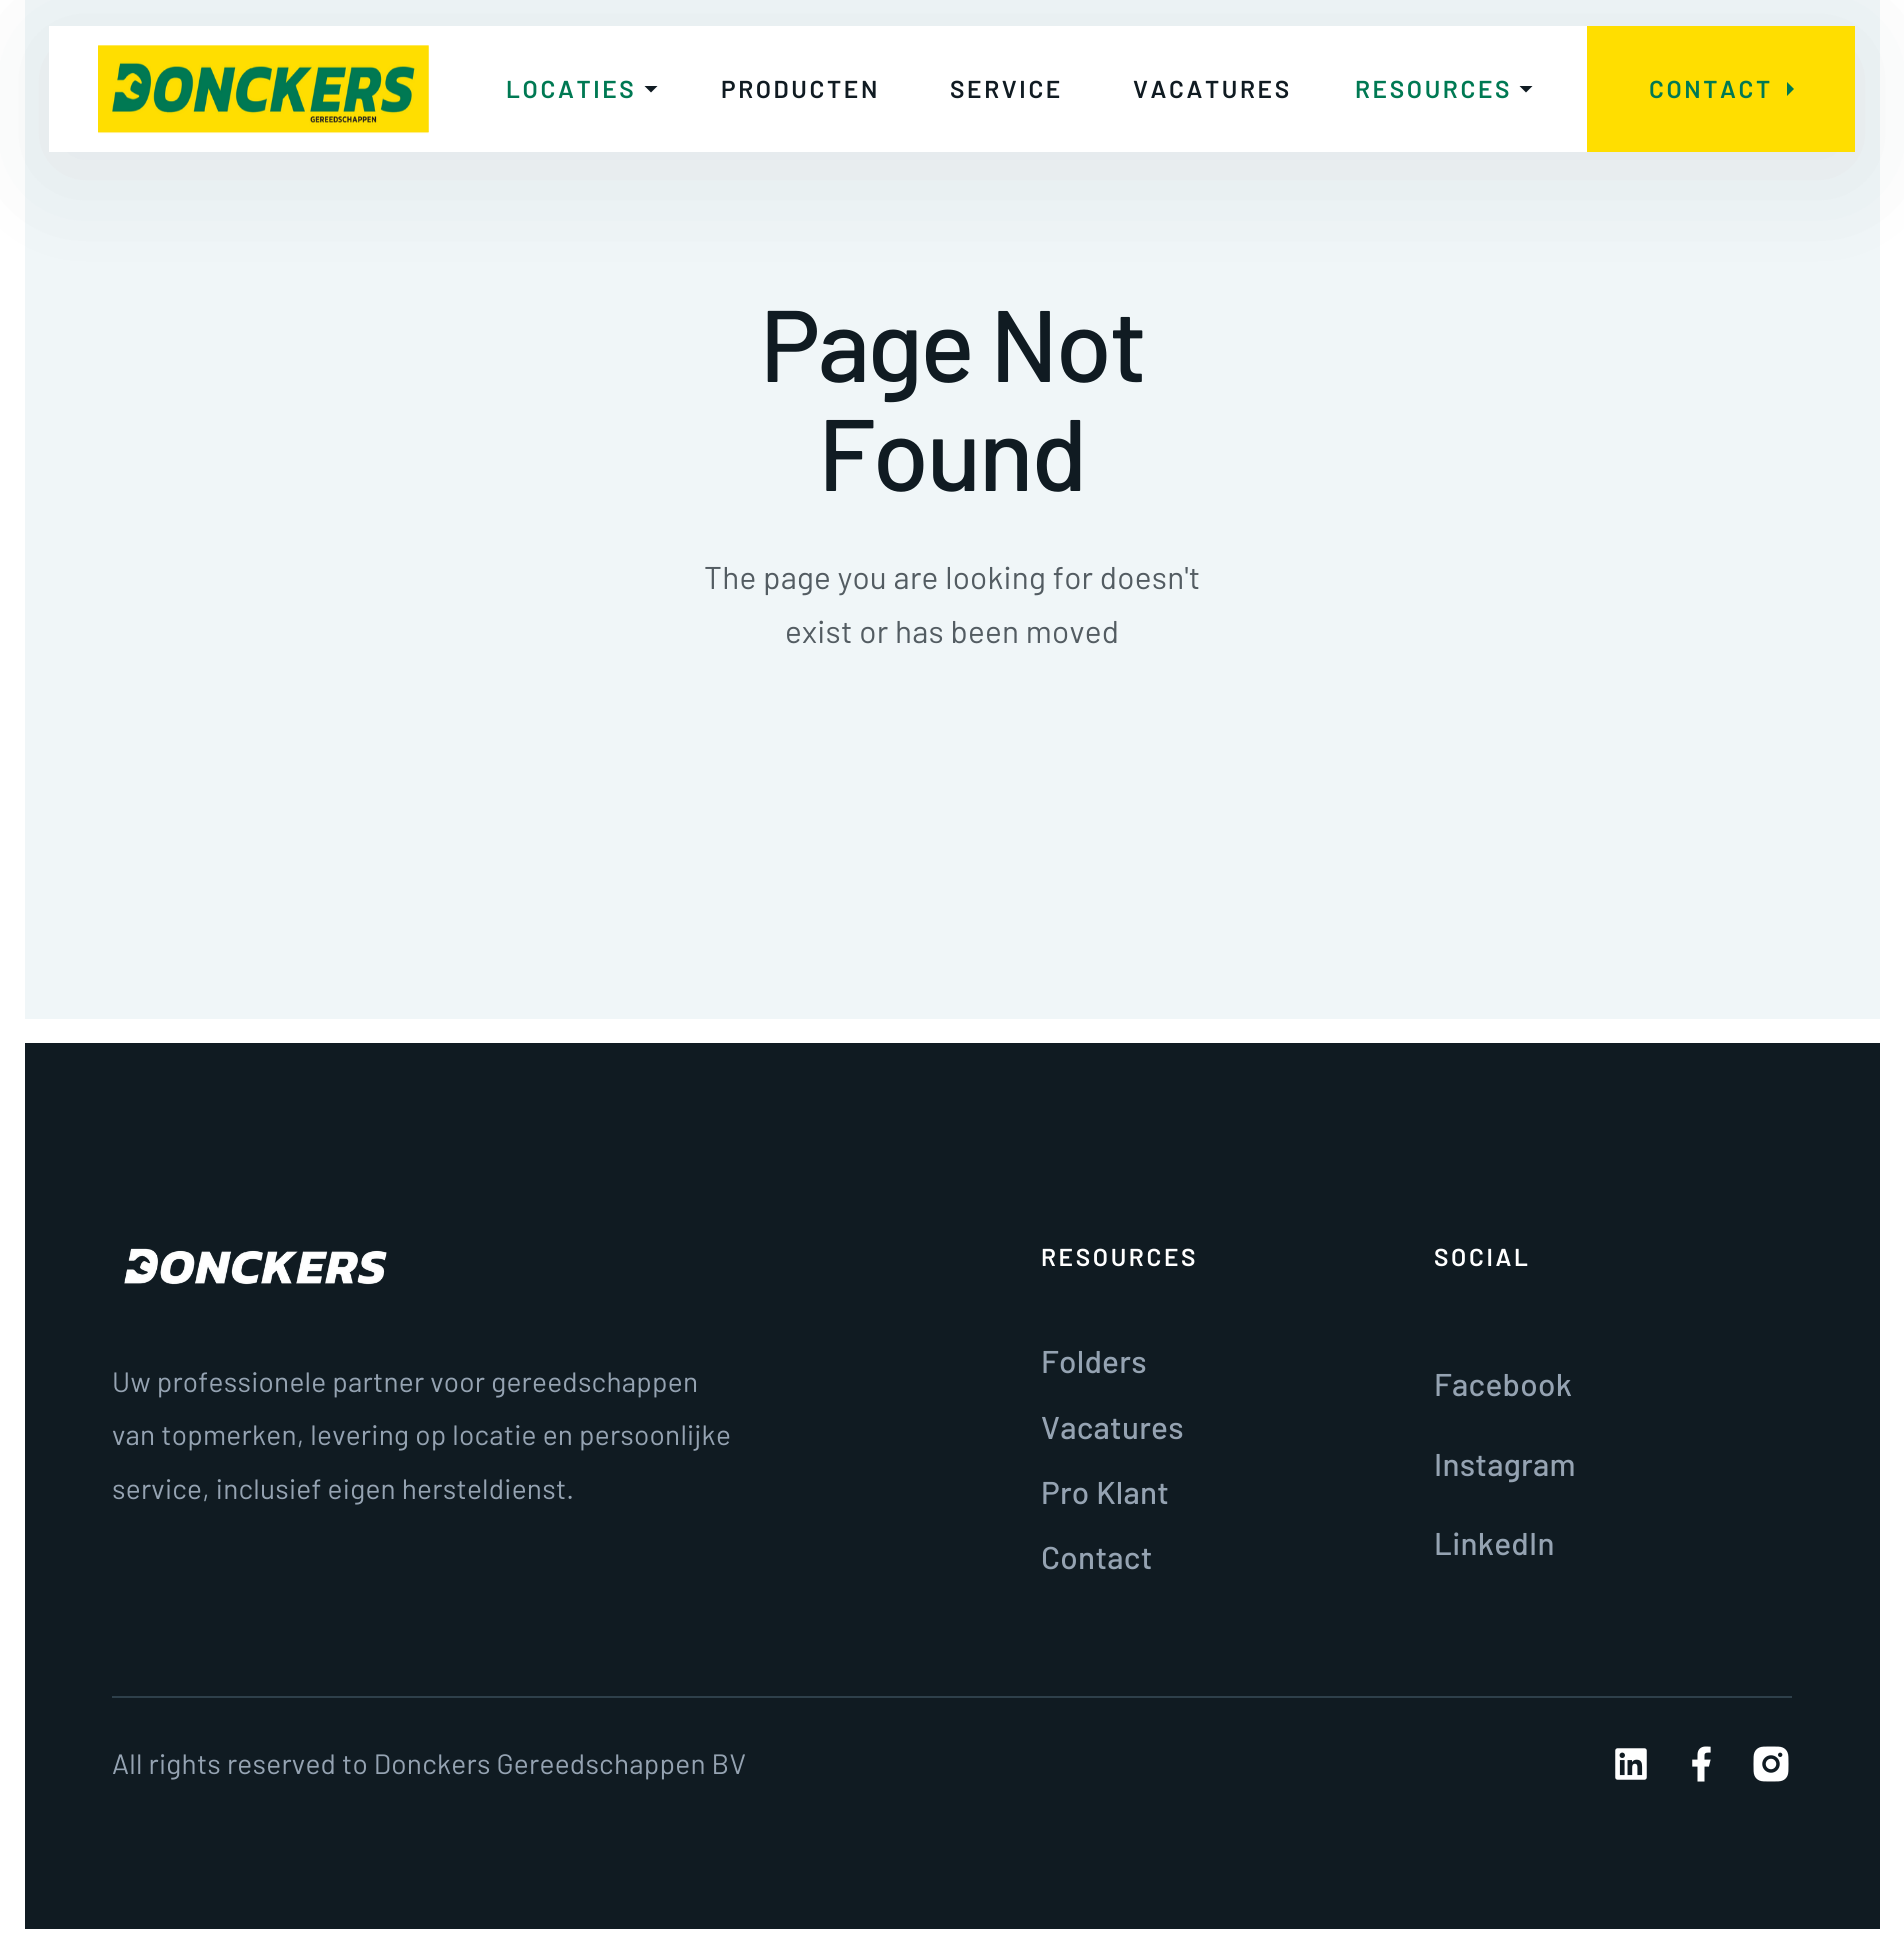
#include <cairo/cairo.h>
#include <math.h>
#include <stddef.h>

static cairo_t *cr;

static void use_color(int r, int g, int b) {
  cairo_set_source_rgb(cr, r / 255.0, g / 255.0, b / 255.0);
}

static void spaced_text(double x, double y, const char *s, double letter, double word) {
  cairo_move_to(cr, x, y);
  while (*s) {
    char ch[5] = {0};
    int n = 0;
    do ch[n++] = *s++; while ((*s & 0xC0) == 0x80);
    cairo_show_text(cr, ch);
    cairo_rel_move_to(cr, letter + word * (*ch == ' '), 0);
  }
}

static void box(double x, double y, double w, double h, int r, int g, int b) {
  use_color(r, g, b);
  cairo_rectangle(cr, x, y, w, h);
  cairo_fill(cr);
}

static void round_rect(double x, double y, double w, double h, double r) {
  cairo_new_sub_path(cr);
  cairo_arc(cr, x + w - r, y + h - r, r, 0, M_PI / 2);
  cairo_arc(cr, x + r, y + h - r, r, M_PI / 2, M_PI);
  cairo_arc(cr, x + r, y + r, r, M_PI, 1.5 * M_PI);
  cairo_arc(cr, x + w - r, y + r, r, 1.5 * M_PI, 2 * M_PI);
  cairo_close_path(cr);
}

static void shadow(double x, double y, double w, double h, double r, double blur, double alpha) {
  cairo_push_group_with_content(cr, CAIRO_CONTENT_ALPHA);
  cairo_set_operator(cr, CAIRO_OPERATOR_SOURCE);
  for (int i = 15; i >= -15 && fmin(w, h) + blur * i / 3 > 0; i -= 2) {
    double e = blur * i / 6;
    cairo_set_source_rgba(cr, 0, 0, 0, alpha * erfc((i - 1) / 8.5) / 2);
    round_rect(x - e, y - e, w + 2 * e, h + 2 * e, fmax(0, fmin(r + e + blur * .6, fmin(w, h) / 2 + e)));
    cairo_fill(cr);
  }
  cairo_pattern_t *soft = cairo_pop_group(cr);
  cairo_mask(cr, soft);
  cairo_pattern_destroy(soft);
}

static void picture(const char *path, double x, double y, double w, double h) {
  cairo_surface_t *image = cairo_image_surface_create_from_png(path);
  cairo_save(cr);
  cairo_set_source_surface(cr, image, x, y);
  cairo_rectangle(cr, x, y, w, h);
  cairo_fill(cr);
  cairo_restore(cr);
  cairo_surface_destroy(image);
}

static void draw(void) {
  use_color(255, 255, 255);
  cairo_paint(cr);
  box(25, 0, 1855, 1019, 240, 246, 248);
  use_color(16, 27, 34);
  shadow(49, 44, 1806, 126, 0, 61, 0.08);
  box(49, 26, 1538, 126, 255, 255, 255);
  picture("img_01.png", 98, 45, 331, 89);
  cairo_save(cr);
  cairo_rectangle(cr, 644, 86, 14, 7);
  cairo_clip(cr);
  use_color(16, 27, 34);
  cairo_new_path(cr);
  cairo_move_to(cr, 651, 92.5);
  cairo_line_to(cr, 644, 85.5);
  cairo_line_to(cr, 658, 85.5);
  cairo_close_path(cr);
  cairo_fill(cr);
  cairo_restore(cr);
  cairo_save(cr);
  cairo_rectangle(cr, 1519, 86, 14, 7);
  cairo_clip(cr);
  use_color(16, 27, 34);
  cairo_new_path(cr);
  cairo_move_to(cr, 1526, 92.5);
  cairo_line_to(cr, 1519, 85.5);
  cairo_line_to(cr, 1533, 85.5);
  cairo_close_path(cr);
  cairo_fill(cr);
  cairo_restore(cr);
  box(1587, 26, 268, 126, 255, 222, 0);
  use_color(0, 121, 83);
  cairo_new_path(cr);
  cairo_move_to(cr, 1794, 89);
  cairo_line_to(cr, 1787, 96);
  cairo_line_to(cr, 1787, 82);
  cairo_close_path(cr);
  cairo_fill(cr);
  box(25, 1043, 1855, 886, 16, 27, 34);
  picture("img_02.png", 124, 1248, 263, 37);
  box(112, 1696, 1680, 2, 46, 64, 75);
  picture("img_03.png", 1615, 1748, 32, 32);
  picture("img_04.png", 1692, 1746, 19, 36);
  picture("img_05.png", 1753, 1746, 36, 36);
  cairo_select_font_face(cr, "Barlow SemiBold", CAIRO_FONT_SLANT_NORMAL, CAIRO_FONT_WEIGHT_NORMAL);
  cairo_set_font_size(cr, 24.5);
  use_color(0, 121, 83);
  spaced_text(506, 98, "LOCATIES", 2.6, 0);
  use_color(16, 27, 34);
  spaced_text(721, 98, "PRODUCTEN", 2.6, 0);
  spaced_text(950, 98, "SERVICE", 2.6, 0);
  spaced_text(1133, 98, "VACATURES", 2.6, 0);
  use_color(0, 121, 83);
  spaced_text(1355, 98, "RESOURCES", 2.6, 0);
  spaced_text(1649, 98, "CONTACT", 2.6, 0);
  cairo_select_font_face(cr, "Barlow Medium", CAIRO_FONT_SLANT_NORMAL, CAIRO_FONT_WEIGHT_NORMAL);
  cairo_set_font_size(cr, 101.5);
  use_color(16, 27, 34);
  spaced_text(760, 382, "Page Not", -2.5, 0);
  spaced_text(818, 491, "Found", -2.5, 0);
  cairo_select_font_face(cr, "Barlow", CAIRO_FONT_SLANT_NORMAL, CAIRO_FONT_WEIGHT_NORMAL);
  cairo_set_font_size(cr, 31.5);
  use_color(83, 92, 98);
  spaced_text(704, 589, "The page you are looking for doesn't", 0.25, 0);
  spaced_text(785, 643, "exist or has been moved", 0.25, 0);
  cairo_set_font_size(cr, 28);
  use_color(149, 163, 178);
  spaced_text(112, 1392, "Uw professionele partner voor gereedschappen", 0.25, 0);
  spaced_text(112, 1445, "van topmerken, levering op locatie en persoonlijke", 0.25, 0);
  spaced_text(112, 1499, "service, inclusief eigen hersteldienst.", 0.25, 0);
  cairo_select_font_face(cr, "Barlow SemiBold", CAIRO_FONT_SLANT_NORMAL, CAIRO_FONT_WEIGHT_NORMAL);
  cairo_set_font_size(cr, 24.5);
  use_color(255, 255, 255);
  spaced_text(1041, 1266, "RESOURCES", 2.6, 0);
  cairo_select_font_face(cr, "Barlow Medium", CAIRO_FONT_SLANT_NORMAL, CAIRO_FONT_WEIGHT_NORMAL);
  cairo_set_font_size(cr, 31.5);
  use_color(149, 163, 178);
  spaced_text(1041, 1373, "Folders", 0.25, 0);
  spaced_text(1041, 1439, "Vacatures", 0.25, 0);
  spaced_text(1041, 1504, "Pro Klant", 0.25, 0);
  spaced_text(1041, 1569, "Contact", 0.25, 0);
  cairo_select_font_face(cr, "Barlow SemiBold", CAIRO_FONT_SLANT_NORMAL, CAIRO_FONT_WEIGHT_NORMAL);
  cairo_set_font_size(cr, 24.5);
  use_color(255, 255, 255);
  spaced_text(1434, 1266, "SOCIAL", 2.6, 0);
  cairo_select_font_face(cr, "Barlow Medium", CAIRO_FONT_SLANT_NORMAL, CAIRO_FONT_WEIGHT_NORMAL);
  cairo_set_font_size(cr, 31.5);
  use_color(149, 163, 178);
  spaced_text(1434, 1396, "Facebook", 0.25, 0);
  spaced_text(1434, 1476, "Instagram", 0.25, 0);
  spaced_text(1434, 1555, "LinkedIn", 0.25, 0);
  cairo_select_font_face(cr, "Barlow", CAIRO_FONT_SLANT_NORMAL, CAIRO_FONT_WEIGHT_NORMAL);
  cairo_set_font_size(cr, 28);
  spaced_text(112, 1774, "All rights reserved to Donckers Gereedschappen BV", 0.25, 0);
}

int main(void) {
  cairo_surface_t *surface = cairo_image_surface_create(CAIRO_FORMAT_RGB24, 1904, 1957);
  cr = cairo_create(surface);
  cairo_font_options_t *options = cairo_font_options_create();
  cairo_font_options_set_hint_metrics(options, CAIRO_HINT_METRICS_OFF);
  cairo_font_options_set_hint_style(options, CAIRO_HINT_STYLE_NONE);
  cairo_set_font_options(cr, options);
  cairo_set_miter_limit(cr, 4);
  draw();
  cairo_surface_write_to_png(surface, "out.png");
  cairo_font_options_destroy(options);
  cairo_destroy(cr);
  cairo_surface_destroy(surface);
  return 0;
}
